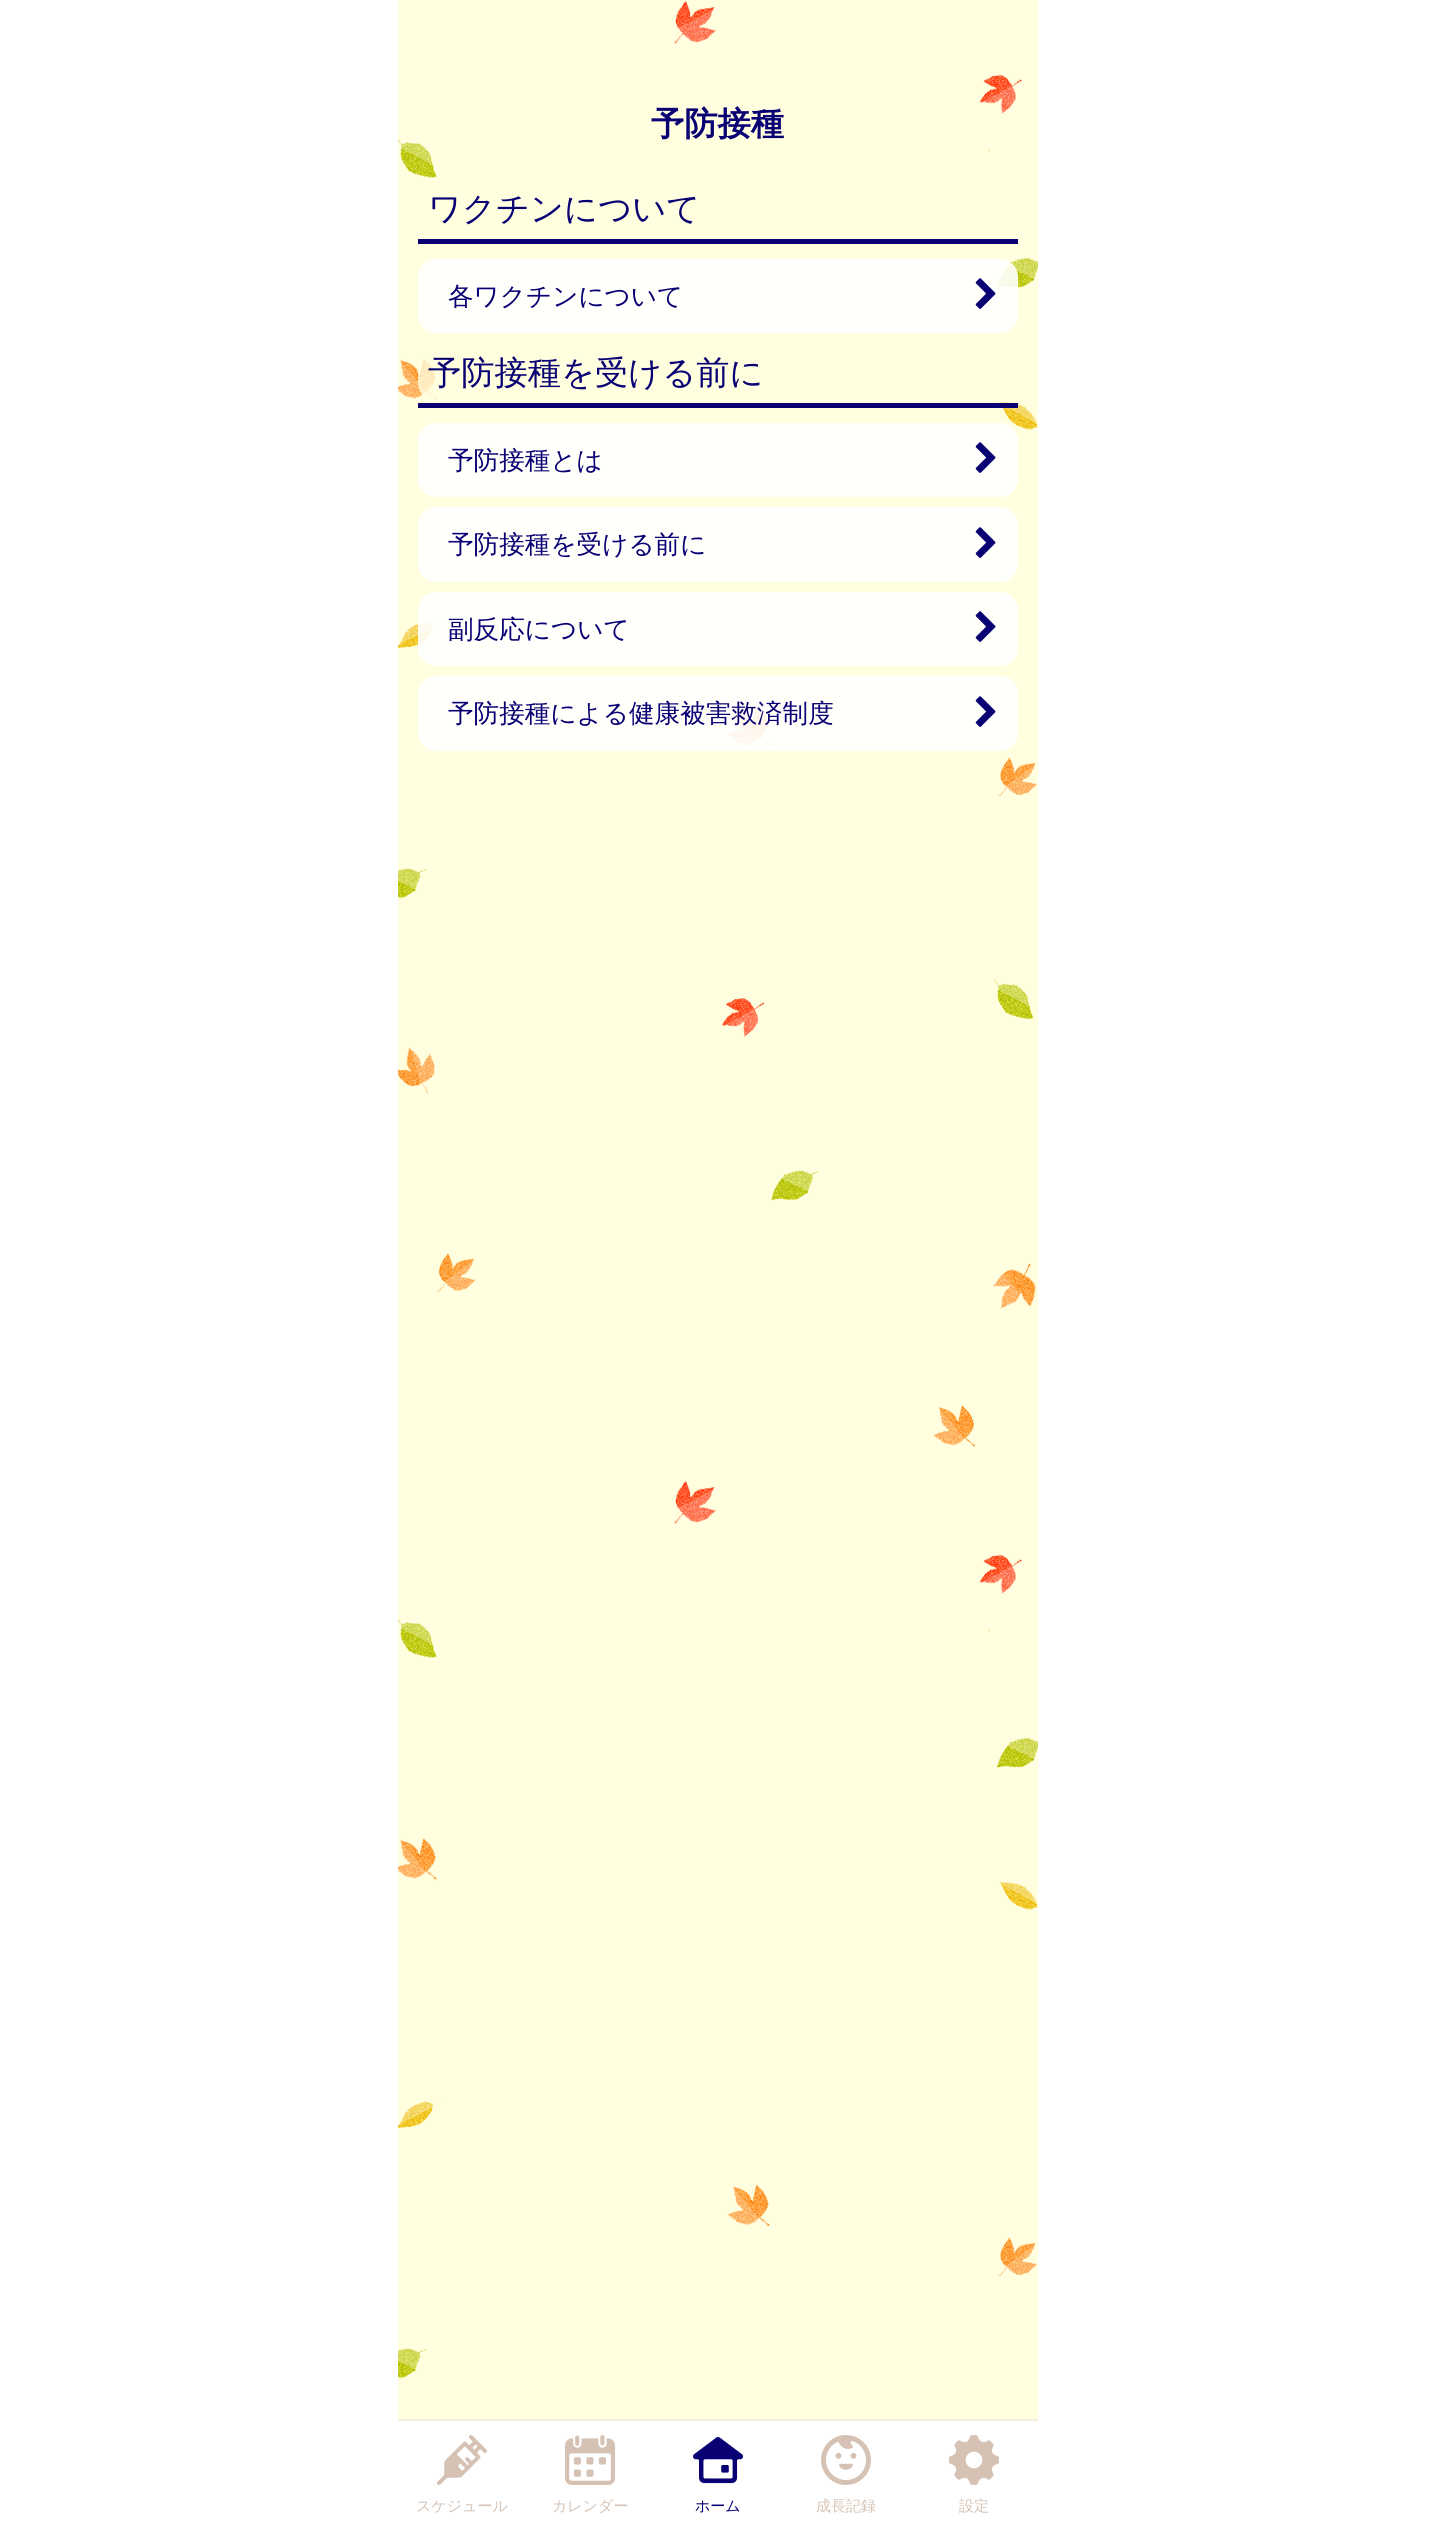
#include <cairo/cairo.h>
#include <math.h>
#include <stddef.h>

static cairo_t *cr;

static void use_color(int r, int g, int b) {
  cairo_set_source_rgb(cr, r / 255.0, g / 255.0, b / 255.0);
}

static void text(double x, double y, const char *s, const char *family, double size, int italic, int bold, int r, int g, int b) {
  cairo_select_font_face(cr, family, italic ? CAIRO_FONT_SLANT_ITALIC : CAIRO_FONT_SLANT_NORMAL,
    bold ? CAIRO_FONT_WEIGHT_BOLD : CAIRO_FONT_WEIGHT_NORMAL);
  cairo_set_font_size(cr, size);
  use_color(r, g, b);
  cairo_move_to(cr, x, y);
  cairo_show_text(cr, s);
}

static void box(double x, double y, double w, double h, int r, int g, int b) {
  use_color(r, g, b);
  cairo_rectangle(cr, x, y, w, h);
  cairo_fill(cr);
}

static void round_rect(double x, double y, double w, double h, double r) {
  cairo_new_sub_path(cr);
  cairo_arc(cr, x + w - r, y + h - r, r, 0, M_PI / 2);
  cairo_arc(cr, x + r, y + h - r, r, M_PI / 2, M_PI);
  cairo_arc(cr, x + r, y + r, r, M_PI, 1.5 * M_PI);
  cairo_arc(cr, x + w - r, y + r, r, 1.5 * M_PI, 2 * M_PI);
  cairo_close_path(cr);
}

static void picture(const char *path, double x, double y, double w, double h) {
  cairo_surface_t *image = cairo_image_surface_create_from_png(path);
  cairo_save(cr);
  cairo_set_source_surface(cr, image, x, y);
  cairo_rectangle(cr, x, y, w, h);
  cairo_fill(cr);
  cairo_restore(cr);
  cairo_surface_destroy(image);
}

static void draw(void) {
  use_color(255, 255, 255);
  cairo_paint(cr);
  picture("img_01.png", 398, 0, 640, 2419);
  box(418, 239, 600, 5, 8, 0, 115);
  cairo_set_source_rgba(cr, 1, 1, 1, 0.9);
  round_rect(418, 259, 600, 74, 18);
  cairo_fill(cr);
  picture("img_02.png", 975, 278, 21, 31);
  box(418, 403, 600, 5, 8, 0, 115);
  cairo_set_source_rgba(cr, 1, 1, 0.878, 0.8);
  round_rect(418, 344, 356, 57, 18);
  cairo_fill(cr);
  use_color(255, 255, 252);
  round_rect(418, 423, 600, 74, 18);
  cairo_fill(cr);
  picture("img_03.png", 975, 442, 21, 31);
  round_rect(418, 507, 600, 75, 18);
  cairo_fill(cr);
  picture("img_03.png", 975, 527, 21, 31);
  cairo_set_source_rgba(cr, 1, 1, 1, 0.9);
  round_rect(418, 592, 600, 74, 18);
  cairo_fill(cr);
  picture("img_02.png", 975, 611, 21, 31);
  round_rect(418, 676, 600, 75, 18);
  cairo_fill(cr);
  picture("img_02.png", 975, 696, 21, 31);
  box(398, 2419, 640, 2, 245, 238, 229);
  picture("img_04.png", 437, 2435, 50, 50);
  picture("img_05.png", 565, 2435, 50, 50);
  picture("img_06.png", 693, 2437, 50, 47);
  picture("img_07.png", 821, 2435, 50, 50);
  picture("img_08.png", 949, 2435, 50, 50);
  text(651, 135, "予防接種", "WenQuanYi Zen Hei", 33.25, 0, 1, 8, 0, 115);
  text(428, 220, "ワクチンについて", "WenQuanYi Zen Hei Medium", 33.25, 0, 0, 8, 0, 115);
  text(448, 305, "各ワクチンについて", "WenQuanYi Zen Hei Medium", 25.6, 0, 0, 8, 0, 115);
  text(428, 384, "予防接種を受ける前に", "WenQuanYi Zen Hei Medium", 33.25, 0, 0, 8, 0, 115);
  text(448, 469, "予防接種とは", "WenQuanYi Zen Hei Medium", 25.6, 0, 0, 8, 0, 115);
  text(448, 553, "予防接種を受ける前に", "WenQuanYi Zen Hei Medium", 25.6, 0, 0, 8, 0, 115);
  text(448, 638, "副反応について", "WenQuanYi Zen Hei Medium", 25.6, 0, 0, 8, 0, 115);
  text(448, 722, "予防接種による健康被害救済制度", "WenQuanYi Zen Hei Medium", 25.6, 0, 0, 8, 0, 115);
  text(416, 2511, "スケジュール", "WenQuanYi Zen Hei Medium", 15, 0, 0, 213, 194, 180);
  text(552, 2511, "カレンダー", "WenQuanYi Zen Hei Medium", 15, 0, 0, 213, 194, 180);
  text(695, 2511, "ホーム", "WenQuanYi Zen Hei Medium", 15, 0, 0, 8, 0, 115);
  text(816, 2511, "成長記録", "WenQuanYi Zen Hei Medium", 15, 0, 0, 213, 194, 180);
  text(959, 2511, "設定", "WenQuanYi Zen Hei Medium", 15, 0, 0, 213, 194, 180);
}

int main(void) {
  cairo_surface_t *surface = cairo_image_surface_create(CAIRO_FORMAT_RGB24, 1436, 2521);
  cr = cairo_create(surface);
  cairo_font_options_t *options = cairo_font_options_create();
  cairo_font_options_set_hint_metrics(options, CAIRO_HINT_METRICS_OFF);
  cairo_font_options_set_hint_style(options, CAIRO_HINT_STYLE_NONE);
  cairo_set_font_options(cr, options);
  cairo_set_miter_limit(cr, 4);
  draw();
  cairo_surface_write_to_png(surface, "out.png");
  cairo_font_options_destroy(options);
  cairo_destroy(cr);
  cairo_surface_destroy(surface);
  return 0;
}
